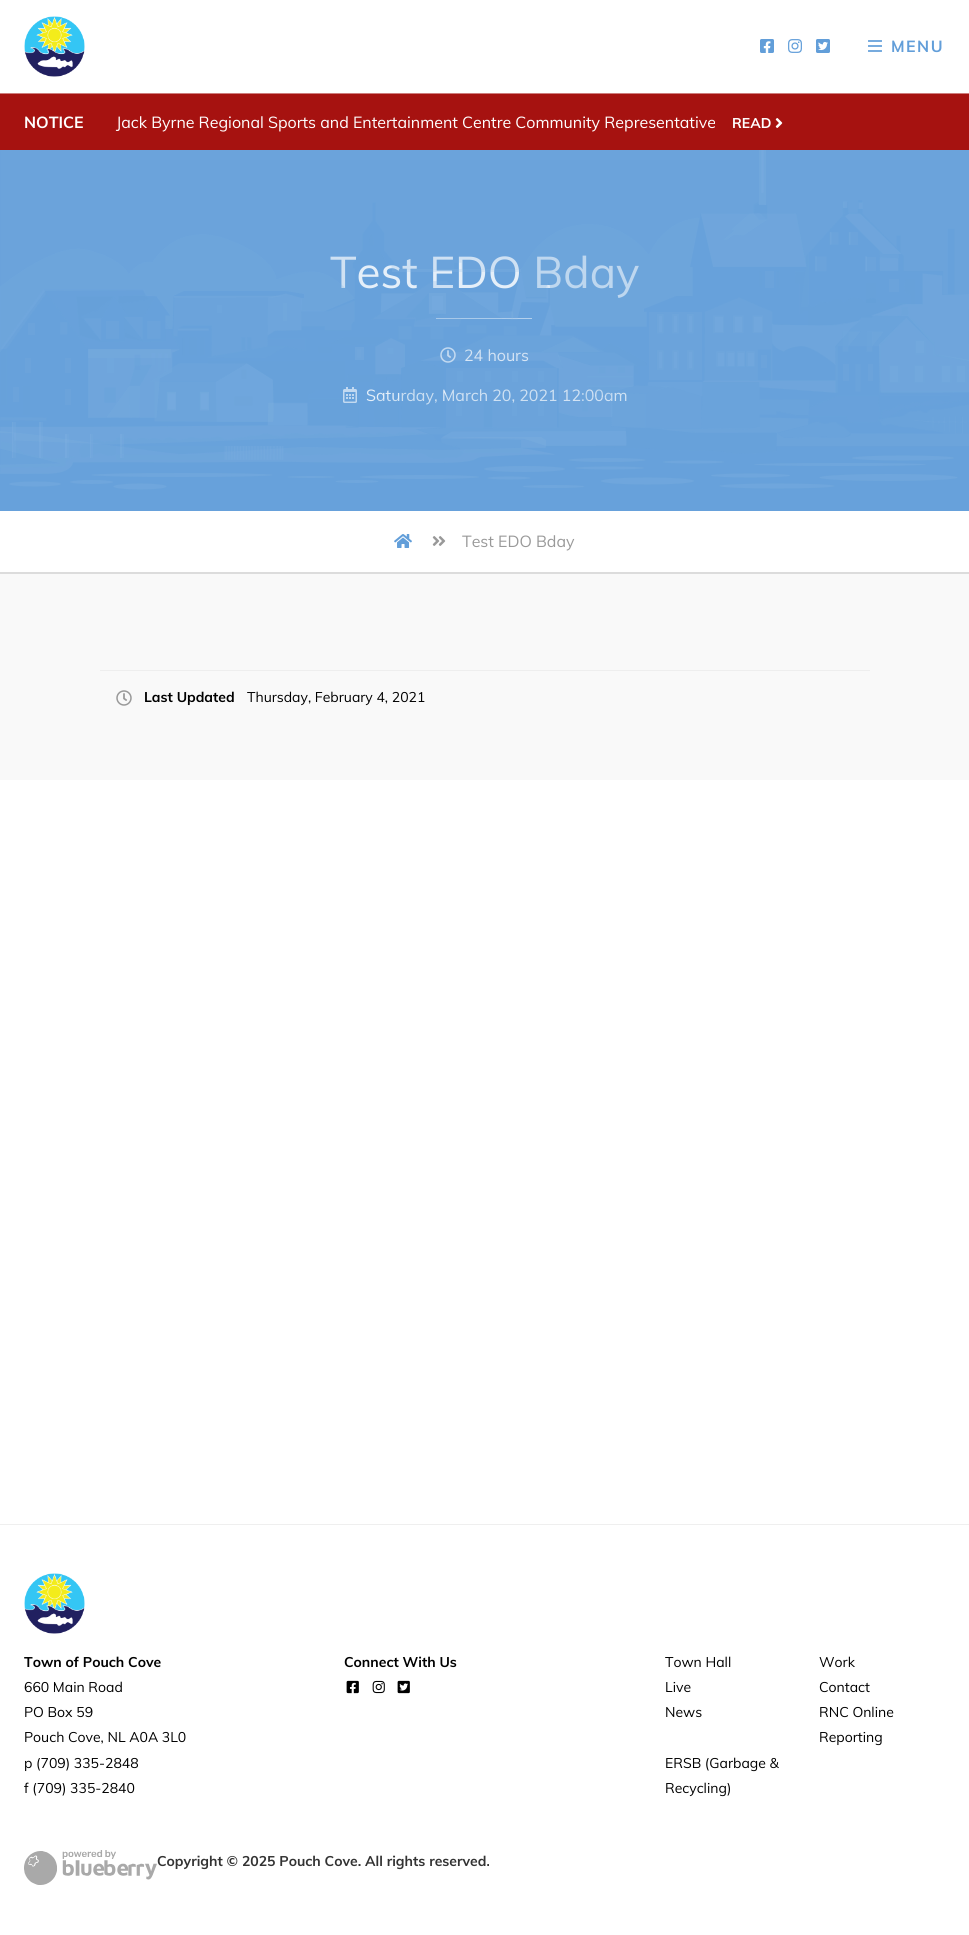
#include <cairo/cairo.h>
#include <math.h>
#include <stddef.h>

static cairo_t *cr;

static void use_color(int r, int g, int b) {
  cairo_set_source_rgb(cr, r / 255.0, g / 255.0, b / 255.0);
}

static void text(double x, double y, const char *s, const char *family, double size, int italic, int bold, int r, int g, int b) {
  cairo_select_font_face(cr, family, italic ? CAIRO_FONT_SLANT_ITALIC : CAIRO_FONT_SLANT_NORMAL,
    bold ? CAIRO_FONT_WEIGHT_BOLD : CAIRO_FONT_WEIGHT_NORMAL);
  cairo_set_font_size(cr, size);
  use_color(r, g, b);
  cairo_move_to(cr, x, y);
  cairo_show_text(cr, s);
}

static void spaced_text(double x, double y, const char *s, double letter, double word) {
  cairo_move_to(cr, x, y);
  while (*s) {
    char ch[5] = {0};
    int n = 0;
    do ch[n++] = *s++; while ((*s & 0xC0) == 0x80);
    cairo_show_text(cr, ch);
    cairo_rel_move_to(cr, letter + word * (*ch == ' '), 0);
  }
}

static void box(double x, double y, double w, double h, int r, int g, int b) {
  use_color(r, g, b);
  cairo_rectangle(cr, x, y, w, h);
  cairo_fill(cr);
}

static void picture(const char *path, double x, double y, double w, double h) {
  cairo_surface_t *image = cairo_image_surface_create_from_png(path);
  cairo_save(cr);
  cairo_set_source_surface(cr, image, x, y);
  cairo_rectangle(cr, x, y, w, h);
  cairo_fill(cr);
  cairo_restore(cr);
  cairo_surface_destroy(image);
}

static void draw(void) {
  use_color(255, 255, 255);
  cairo_paint(cr);
  picture("img_01.png", 24, 16, 61, 61);
  picture("img_02.png", 760, 39, 14, 14);
  picture("img_03.png", 788, 39, 14, 14);
  picture("img_04.png", 816, 39, 14, 14);
  picture("img_05.png", 868, 40, 14, 12);
  box(0, 94, 969, 56, 166, 18, 16);
  box(0, 93, 969, 1, 206, 125, 124);
  picture("img_06.png", 775, 118, 8, 10);
  box(0, 574, 969, 206, 249, 249, 249);
  box(0, 150, 969, 361, 98, 158, 217);
  box(436, 318, 96, 1, 192, 216, 240);
  box(0, 572, 969, 2, 220, 220, 220);
  picture("img_10.png", 394, 534, 18, 14);
  picture("img_11.png", 432, 536, 14, 10);
  box(100, 670, 770, 1, 238, 238, 238);
  picture("img_12.png", 116, 690, 16, 16);
  box(0, 1524, 969, 1, 239, 239, 239);
  picture("img_01.png", 24, 1573, 61, 61);
  picture("img_13.png", 346, 1680, 13, 14);
  picture("img_14.png", 372, 1680, 13, 14);
  picture("img_15.png", 397, 1680, 13, 14);
  picture("img_16.png", 24, 1850, 133, 35);
  cairo_select_font_face(cr, "Muli", CAIRO_FONT_SLANT_NORMAL, CAIRO_FONT_WEIGHT_BOLD);
  cairo_set_font_size(cr, 16);
  use_color(98, 158, 217);
  spaced_text(891, 52, "MENU", 1.5, 0);
  text(24, 128, "NOTICE", "Muli", 16, 0, 1, 255, 255, 255);
  text(116, 128, "Jack Byrne Regional Sports and Entertainment Centre Community Representative", "Muli", 16, 0, 0, 255, 255, 255);
  text(732, 128, "READ", "Muli", 14, 0, 1, 255, 255, 255);
  text(330, 288, "Test EDO Bday", "Muli", 44, 0, 0, 255, 255, 255);
  text(464, 361, "24 hours", "Muli", 16, 0, 0, 255, 255, 255);
  text(366, 401, "Saturday, March 20, 2021 12:00am", "Muli", 16, 0, 0, 255, 255, 255);
  picture("img_07.png", 0, 150, 969, 361);
  picture("img_09.png", 343, 387, 14, 16);
  picture("img_08.png", 440, 347, 16, 16);
  text(462, 547, "Test EDO Bday", "Muli", 16, 0, 0, 153, 153, 153);
  text(144, 702, "Last Updated", "Muli", 14, 0, 1, 0, 0, 0);
  text(247, 702, "Thursday, February 4, 2021", "Muli", 14, 0, 0, 0, 0, 0);
  text(24, 1667, "Town of Pouch Cove", "Muli", 14, 0, 1, 0, 0, 0);
  text(24, 1692, "660 Main Road", "Muli", 14, 0, 0, 0, 0, 0);
  text(24, 1717, "PO Box 59", "Muli", 14, 0, 0, 0, 0, 0);
  text(24, 1742, "Pouch Cove, NL A0A 3L0", "Muli", 14, 0, 0, 0, 0, 0);
  text(24, 1768, "p (709) 335-2848", "Muli", 14, 0, 0, 0, 0, 0);
  text(24, 1793, "f (709) 335-2840", "Muli", 14, 0, 0, 0, 0, 0);
  text(344, 1667, "Connect With Us", "Muli", 14, 0, 1, 0, 0, 0);
  text(665, 1667, "Town Hall", "Muli", 14, 0, 0, 0, 0, 0);
  text(819, 1667, "Work", "Muli", 14, 0, 0, 0, 0, 0);
  text(665, 1692, "Live", "Muli", 14, 0, 0, 0, 0, 0);
  text(819, 1692, "Contact", "Muli", 14, 0, 0, 0, 0, 0);
  text(665, 1717, "News", "Muli", 14, 0, 0, 0, 0, 0);
  text(819, 1717, "RNC Online", "Muli", 14, 0, 0, 0, 0, 0);
  text(819, 1742, "Reporting", "Muli", 14, 0, 0, 0, 0, 0);
  text(665, 1768, "ERSB (Garbage &", "Muli", 14, 0, 0, 0, 0, 0);
  text(665, 1793, "Recycling)", "Muli", 14, 0, 0, 0, 0, 0);
  text(157, 1866, "Copyright © 2025 Pouch Cove. All rights reserved.", "Muli", 14, 0, 1, 51, 51, 51);
}

int main(void) {
  cairo_surface_t *surface = cairo_image_surface_create(CAIRO_FORMAT_RGB24, 969, 1935);
  cr = cairo_create(surface);
  cairo_font_options_t *options = cairo_font_options_create();
  cairo_font_options_set_hint_metrics(options, CAIRO_HINT_METRICS_OFF);
  cairo_font_options_set_hint_style(options, CAIRO_HINT_STYLE_NONE);
  cairo_set_font_options(cr, options);
  cairo_set_miter_limit(cr, 4);
  draw();
  cairo_surface_write_to_png(surface, "out.png");
  cairo_font_options_destroy(options);
  cairo_destroy(cr);
  cairo_surface_destroy(surface);
  return 0;
}
